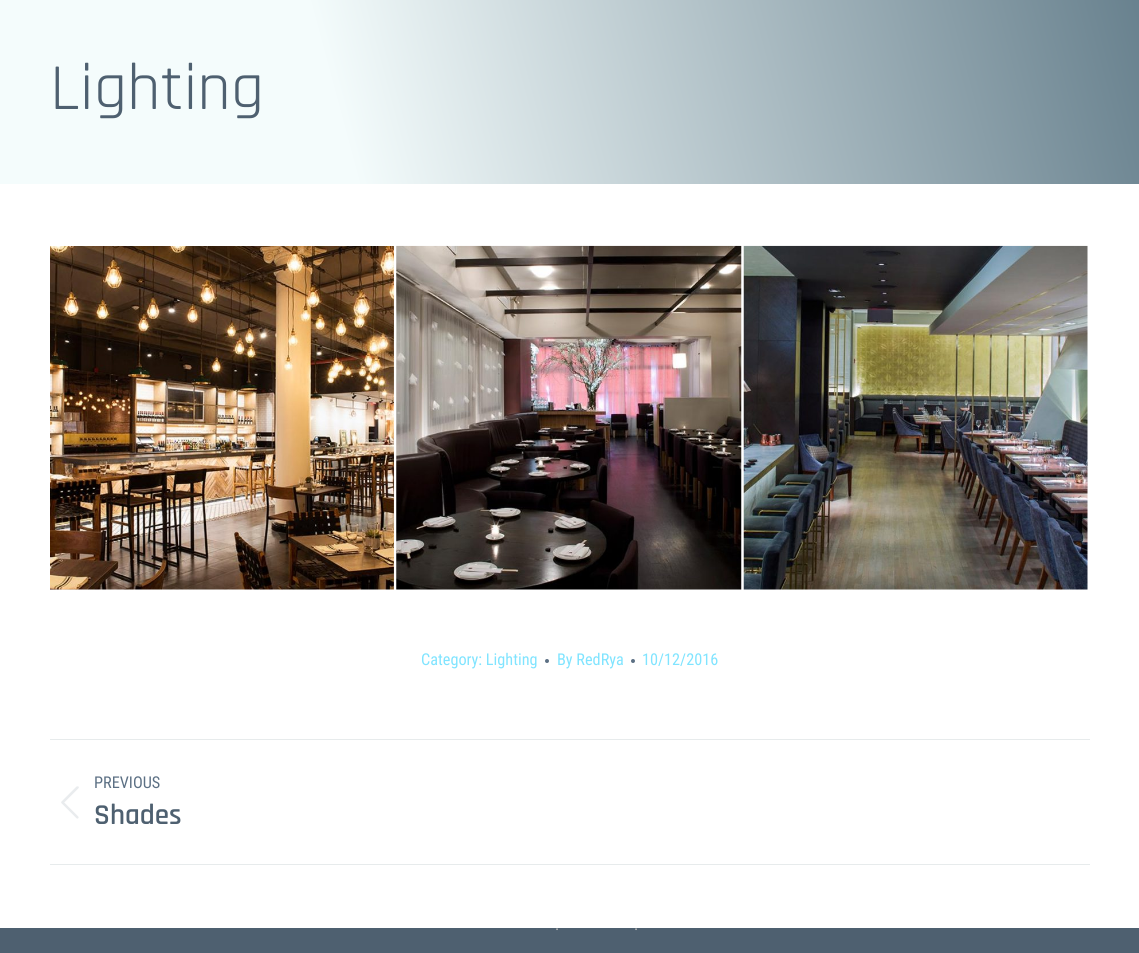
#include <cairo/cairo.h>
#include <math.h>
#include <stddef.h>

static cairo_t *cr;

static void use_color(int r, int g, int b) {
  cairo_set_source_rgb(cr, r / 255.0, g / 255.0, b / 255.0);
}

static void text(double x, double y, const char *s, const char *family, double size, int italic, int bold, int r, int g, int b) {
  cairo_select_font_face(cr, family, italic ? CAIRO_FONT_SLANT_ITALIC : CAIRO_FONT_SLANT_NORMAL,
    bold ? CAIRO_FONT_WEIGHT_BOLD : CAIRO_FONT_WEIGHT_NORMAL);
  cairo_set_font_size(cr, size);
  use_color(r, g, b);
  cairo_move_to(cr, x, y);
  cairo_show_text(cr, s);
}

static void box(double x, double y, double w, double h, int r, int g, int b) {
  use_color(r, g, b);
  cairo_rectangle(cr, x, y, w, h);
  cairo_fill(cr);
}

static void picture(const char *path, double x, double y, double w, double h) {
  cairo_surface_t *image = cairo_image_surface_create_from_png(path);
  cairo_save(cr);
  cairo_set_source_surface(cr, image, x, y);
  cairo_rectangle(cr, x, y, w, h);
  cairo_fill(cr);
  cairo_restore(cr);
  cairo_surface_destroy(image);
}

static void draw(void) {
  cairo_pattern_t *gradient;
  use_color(78, 96, 112);
  cairo_paint(cr);
  box(0, 184, 1139, 744, 255, 255, 255);
  gradient = cairo_pattern_create_linear(15, 239, 1125, -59);
  cairo_pattern_add_color_stop_rgba(gradient, 0.3, 0.957, 0.988, 0.988, 1);
  cairo_pattern_add_color_stop_rgba(gradient, 1, 0.408, 0.506, 0.557, 1);
  cairo_set_source(cr, gradient);
  cairo_pattern_destroy(gradient);
  cairo_rectangle(cr, 0, 0, 1139, 184);
  cairo_fill(cr);
  picture("img_01.png", 50, 246, 344, 344);
  picture("img_02.png", 396, 245, 346, 345);
  picture("img_03.png", 743, 245, 345, 345);
  use_color(92, 112, 132);
  cairo_arc(cr, 547, 661, 2, 0, 2 * M_PI);
  cairo_fill(cr);
  cairo_arc(cr, 633, 661, 2, 0, 2 * M_PI);
  cairo_fill(cr);
  box(50, 739, 1040, 1, 231, 235, 236);
  box(50, 864, 1040, 1, 231, 235, 236);
  picture("img_04.png", 61, 786, 18, 33);
  text(50, 109, "Lighting", "Rajdhani", 66, 0, 0, 78, 96, 112);
  text(421, 665, "Category: Lighting", "Roboto Condensed", 16.25, 0, 0, 128, 228, 255);
  text(557, 665, "By RedRya", "Roboto Condensed", 16.25, 0, 0, 128, 228, 255);
  text(642, 665, "10/12/2016", "Roboto Condensed", 16.25, 0, 0, 128, 228, 255);
  text(94, 788, "PREVIOUS", "Roboto Condensed", 16.25, 0, 0, 92, 112, 132);
  text(94, 824, "Shades", "Rajdhani SemiBold", 29, 0, 0, 78, 96, 112);
  text(555, 930, ".", "Roboto Condensed", 16.25, 0, 0, 179, 181, 182);
  text(634, 930, ".", "Roboto Condensed", 16.25, 0, 0, 179, 181, 182);
}

int main(void) {
  cairo_surface_t *surface = cairo_image_surface_create(CAIRO_FORMAT_RGB24, 1139, 953);
  cr = cairo_create(surface);
  cairo_font_options_t *options = cairo_font_options_create();
  cairo_font_options_set_hint_metrics(options, CAIRO_HINT_METRICS_OFF);
  cairo_font_options_set_hint_style(options, CAIRO_HINT_STYLE_NONE);
  cairo_set_font_options(cr, options);
  cairo_set_miter_limit(cr, 4);
  draw();
  cairo_surface_write_to_png(surface, "out.png");
  cairo_font_options_destroy(options);
  cairo_destroy(cr);
  cairo_surface_destroy(surface);
  return 0;
}
